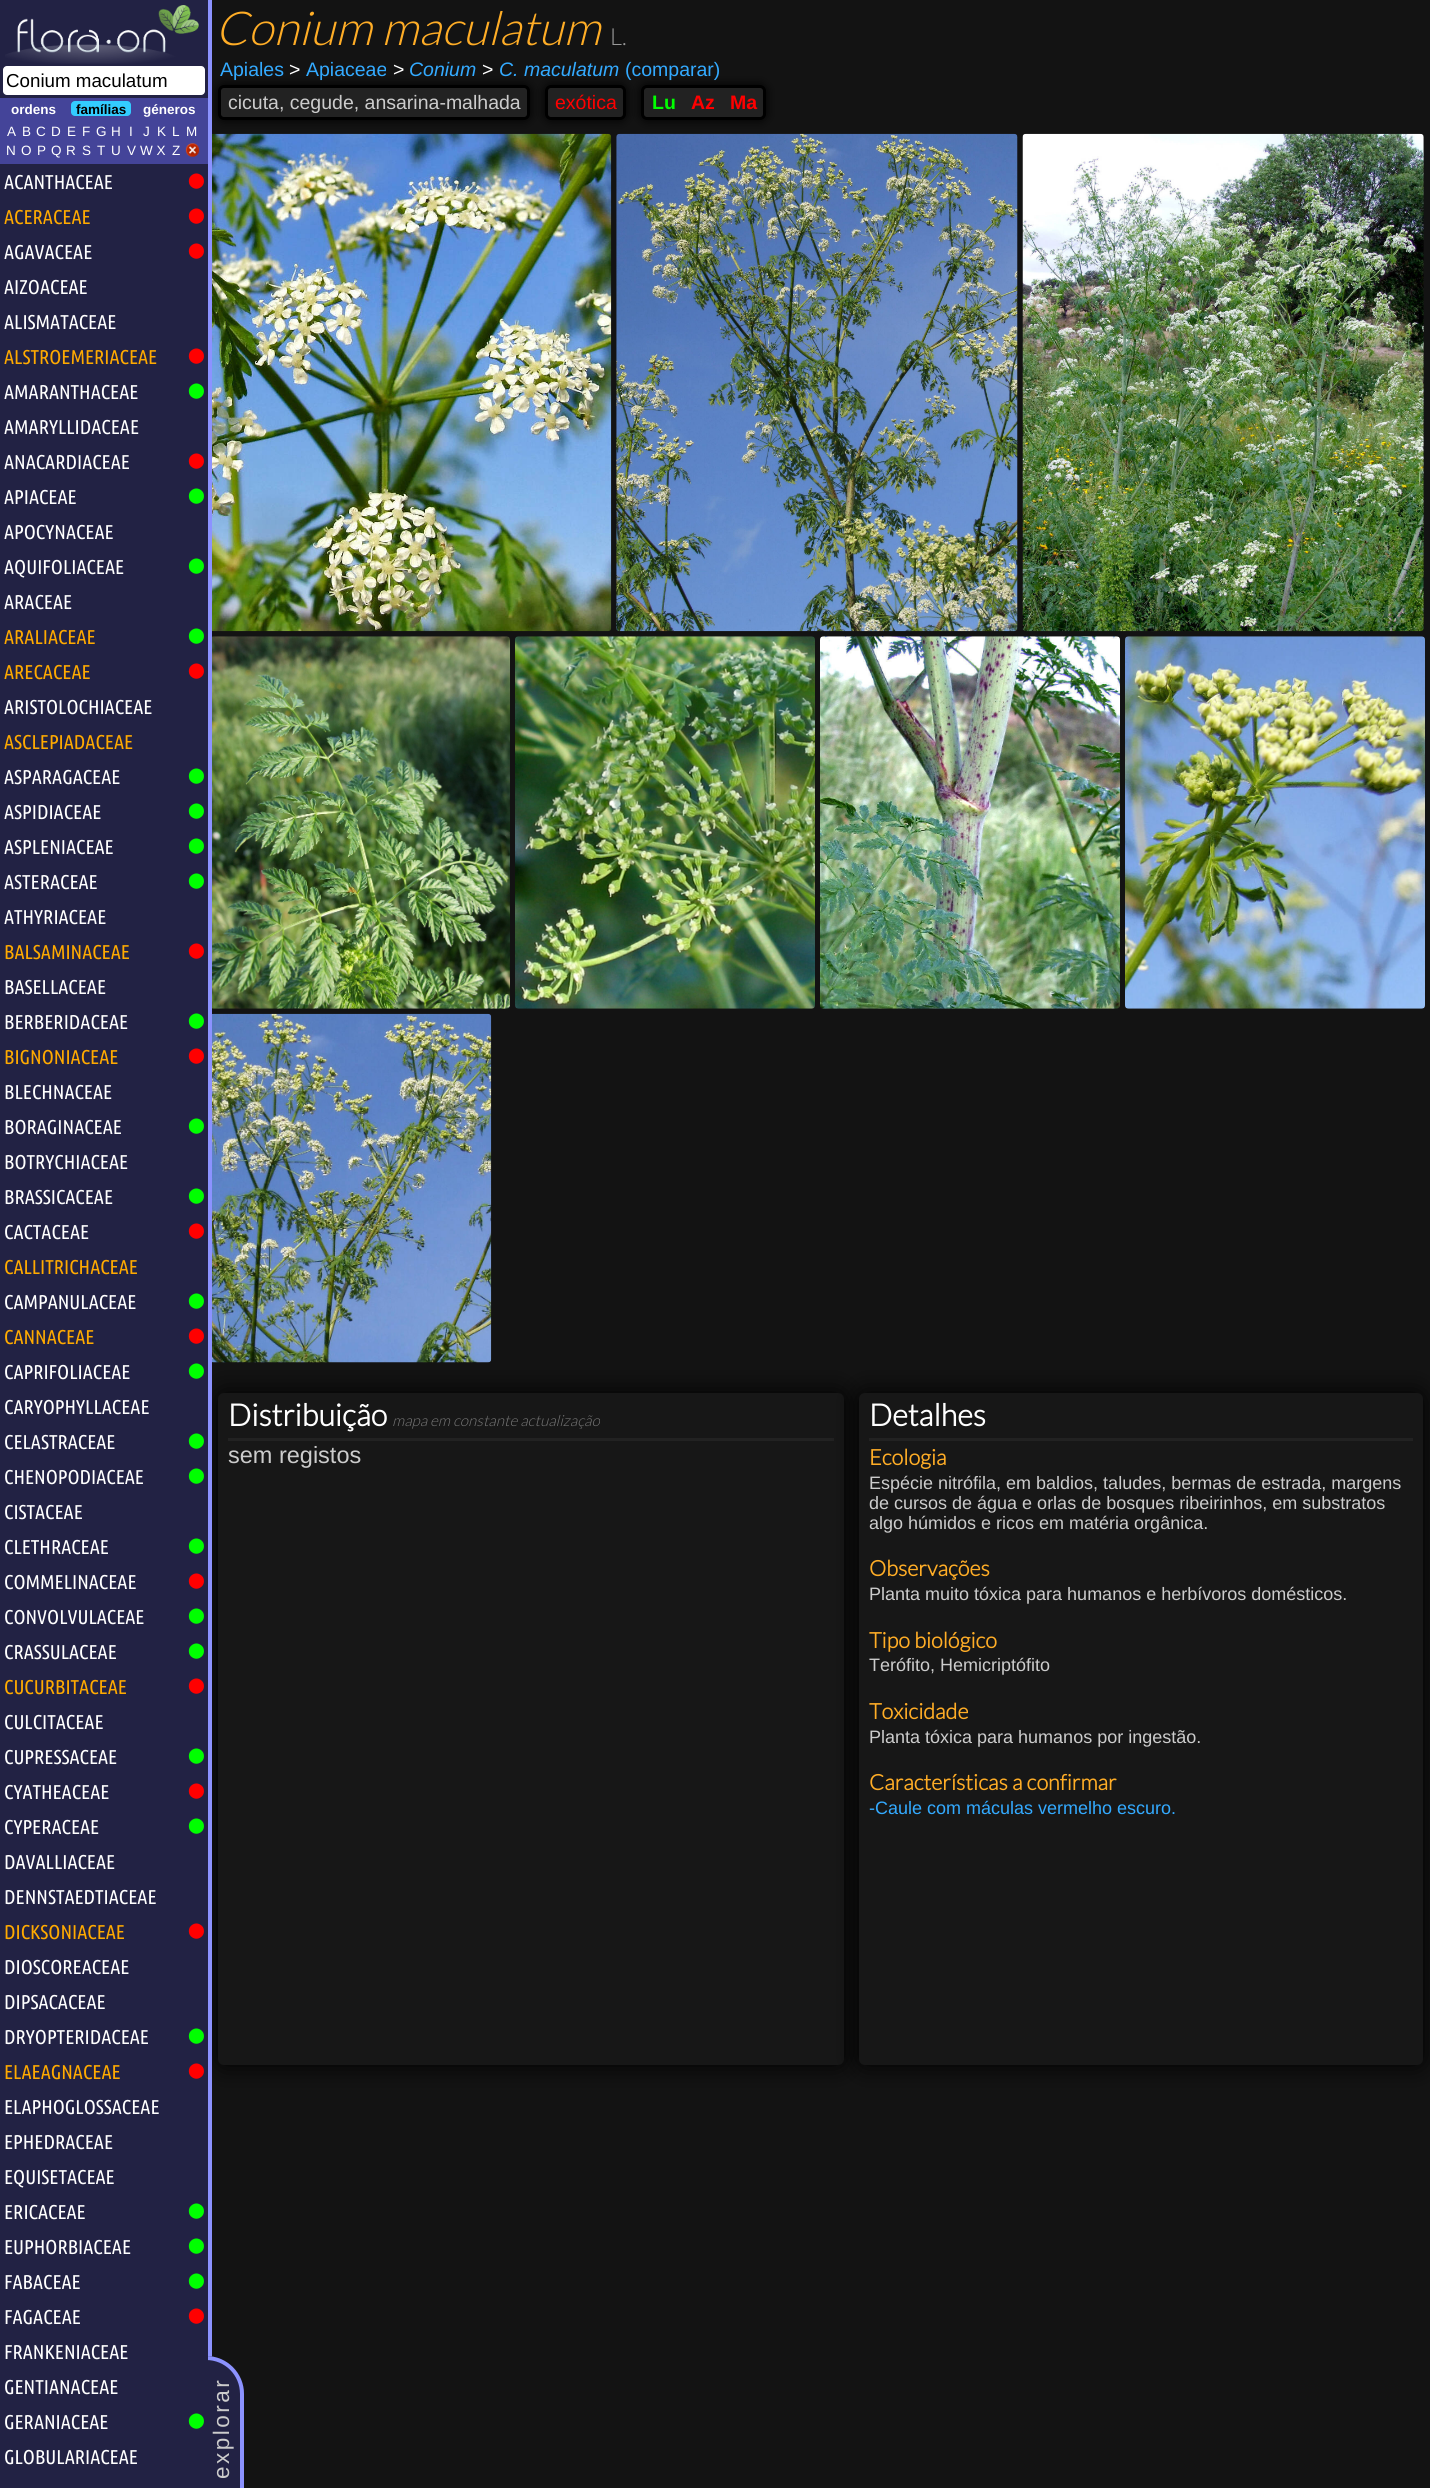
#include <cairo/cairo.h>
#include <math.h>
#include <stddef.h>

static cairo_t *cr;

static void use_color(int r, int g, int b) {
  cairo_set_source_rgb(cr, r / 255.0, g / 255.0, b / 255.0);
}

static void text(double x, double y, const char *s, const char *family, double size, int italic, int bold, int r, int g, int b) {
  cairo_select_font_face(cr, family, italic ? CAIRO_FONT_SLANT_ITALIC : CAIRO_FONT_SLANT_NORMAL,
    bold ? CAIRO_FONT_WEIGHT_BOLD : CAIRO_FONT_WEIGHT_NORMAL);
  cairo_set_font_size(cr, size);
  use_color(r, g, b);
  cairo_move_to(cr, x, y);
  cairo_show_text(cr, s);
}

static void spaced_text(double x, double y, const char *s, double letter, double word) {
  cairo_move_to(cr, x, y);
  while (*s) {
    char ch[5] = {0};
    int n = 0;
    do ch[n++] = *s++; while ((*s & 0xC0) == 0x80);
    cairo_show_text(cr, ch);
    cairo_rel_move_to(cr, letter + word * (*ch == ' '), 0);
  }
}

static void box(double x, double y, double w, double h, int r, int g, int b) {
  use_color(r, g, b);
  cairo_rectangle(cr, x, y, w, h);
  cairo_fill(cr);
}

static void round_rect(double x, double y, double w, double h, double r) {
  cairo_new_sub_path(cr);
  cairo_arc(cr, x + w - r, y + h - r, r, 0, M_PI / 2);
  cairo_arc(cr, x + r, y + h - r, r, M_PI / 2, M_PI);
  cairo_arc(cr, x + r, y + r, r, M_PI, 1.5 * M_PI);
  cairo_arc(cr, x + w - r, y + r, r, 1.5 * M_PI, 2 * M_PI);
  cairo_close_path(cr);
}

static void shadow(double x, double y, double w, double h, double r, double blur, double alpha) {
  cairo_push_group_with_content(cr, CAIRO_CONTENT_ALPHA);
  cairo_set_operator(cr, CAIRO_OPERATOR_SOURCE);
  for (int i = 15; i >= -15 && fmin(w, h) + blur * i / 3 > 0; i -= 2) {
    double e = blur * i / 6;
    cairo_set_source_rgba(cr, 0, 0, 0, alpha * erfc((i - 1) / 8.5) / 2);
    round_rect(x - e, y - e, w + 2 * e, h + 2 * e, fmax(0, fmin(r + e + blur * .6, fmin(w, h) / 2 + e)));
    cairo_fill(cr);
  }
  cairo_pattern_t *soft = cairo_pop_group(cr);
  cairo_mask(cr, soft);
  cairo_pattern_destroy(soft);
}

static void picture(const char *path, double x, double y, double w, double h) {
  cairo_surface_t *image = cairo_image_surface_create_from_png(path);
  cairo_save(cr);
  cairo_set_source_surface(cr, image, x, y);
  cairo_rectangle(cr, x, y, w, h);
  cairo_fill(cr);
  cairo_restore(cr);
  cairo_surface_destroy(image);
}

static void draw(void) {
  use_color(19, 19, 19);
  cairo_paint(cr);
  use_color(0, 0, 0);
  shadow(218, 85, 312, 35, 6, 5, 1);
  shadow(218, 1393, 626, 672, 6, 12.5, 1);
  box(208, 0, 4, 2357, 140, 146, 255);
  use_color(34, 34, 68);
  cairo_new_path(cr);
  cairo_move_to(cr, 201, 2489);
  cairo_line_to(cr, 201, 2356);
  cairo_line_to(cr, 206, 2356);
  cairo_curve_to(cr, 227, 2356, 244, 2373, 244, 2394);
  cairo_line_to(cr, 244, 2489);
  cairo_close_path(cr);
  cairo_fill(cr);
  use_color(140, 146, 255);
  cairo_set_fill_rule(cr, CAIRO_FILL_RULE_EVEN_ODD);
  cairo_new_path(cr);
  cairo_move_to(cr, 201, 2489);
  cairo_line_to(cr, 201, 2356);
  cairo_line_to(cr, 206, 2356);
  cairo_curve_to(cr, 227, 2356, 244, 2373, 244, 2394);
  cairo_line_to(cr, 244, 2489);
  cairo_close_path(cr);
  cairo_move_to(cr, 201, 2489);
  cairo_line_to(cr, 201, 2360);
  cairo_line_to(cr, 206, 2360);
  cairo_curve_to(cr, 225, 2360, 240, 2375, 240, 2394);
  cairo_line_to(cr, 240, 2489);
  cairo_close_path(cr);
  cairo_fill(cr);
  box(0, 0, 208, 2488, 34, 34, 68);
  picture("img_01.png", 5, 5, 194, 59);
  use_color(255, 255, 255);
  round_rect(3, 66, 202, 29, 4);
  cairo_fill(cr);
  box(0, 98, 208, 66, 68, 68, 153);
  use_color(51, 204, 255);
  round_rect(71, 101, 60, 15, 4);
  cairo_fill(cr);
  picture("img_02.png", 185, 143, 15, 14);
  use_color(34, 34, 34);
  round_rect(219.5, 86.5, 309, 32, 4.5);
  cairo_fill_preserve(cr);
  use_color(0, 0, 0);
  cairo_set_line_width(cr, 3);
  cairo_stroke(cr);
  use_color(0, 0, 0);
  shadow(545, 85, 81, 35, 6, 5, 1);
  use_color(34, 34, 34);
  round_rect(546.5, 86.5, 78, 32, 4.5);
  cairo_fill_preserve(cr);
  use_color(0, 0, 0);
  cairo_stroke(cr);
  use_color(0, 0, 0);
  shadow(641, 85, 125, 35, 6, 5, 1);
  use_color(34, 34, 34);
  round_rect(642.5, 86.5, 122, 32, 4.5);
  cairo_fill_preserve(cr);
  use_color(0, 0, 0);
  cairo_stroke(cr);
  picture("img_03.png", 212, 133, 400, 499);
  picture("img_04.png", 616, 133, 402, 499);
  picture("img_05.png", 1022, 133, 402, 499);
  picture("img_06.png", 212, 636, 298, 373);
  picture("img_07.png", 515, 636, 300, 373);
  picture("img_08.png", 820, 636, 300, 373);
  picture("img_09.png", 1125, 636, 300, 373);
  picture("img_10.png", 212, 1013, 280, 350);
  use_color(23, 23, 23);
  round_rect(218, 1393, 626, 672, 6);
  cairo_fill(cr);
  box(228, 1438, 606, 3, 34, 34, 34);
  use_color(0, 0, 0);
  shadow(859, 1393, 564, 672, 6, 12.5, 1);
  use_color(23, 23, 23);
  round_rect(859, 1393, 564, 672, 6);
  cairo_fill(cr);
  box(869, 1438, 544, 3, 34, 34, 34);
  text(6, 87, "Conium maculatum", "Liberation Sans", 18.75, 0, 0, 0, 0, 0);
  text(11, 114, "ordens", "Liberation Sans", 13.5, 0, 1, 255, 255, 255);
  text(76, 114, "famílias", "Liberation Sans", 13.5, 0, 1, 0, 0, 0);
  text(143, 114, "géneros", "Liberation Sans", 13.5, 0, 1, 255, 255, 255);
  text(7, 136, "A", "Liberation Sans", 13.5, 0, 0, 255, 255, 255);
  text(22, 136, "B", "Liberation Sans", 13.5, 0, 0, 255, 255, 255);
  text(36, 136, "C", "Liberation Sans", 13.5, 0, 0, 255, 255, 255);
  text(51, 136, "D", "Liberation Sans", 13.5, 0, 0, 255, 255, 255);
  text(67, 136, "E", "Liberation Sans", 13.5, 0, 0, 255, 255, 255);
  text(82, 136, "F", "Liberation Sans", 13.5, 0, 0, 255, 255, 255);
  text(96, 136, "G", "Liberation Sans", 13.5, 0, 0, 255, 255, 255);
  text(111, 136, "H", "Liberation Sans", 13.5, 0, 0, 255, 255, 255);
  text(129, 136, "I", "Liberation Sans", 13.5, 0, 0, 255, 255, 255);
  text(143, 136, "J", "Liberation Sans", 13.5, 0, 0, 255, 255, 255);
  text(157, 136, "K", "Liberation Sans", 13.5, 0, 0, 255, 255, 255);
  text(172, 136, "L", "Liberation Sans", 13.5, 0, 0, 255, 255, 255);
  text(186, 136, "M", "Liberation Sans", 13.5, 0, 0, 255, 255, 255);
  text(6, 155, "N", "Liberation Sans", 13.5, 0, 0, 255, 255, 255);
  text(21, 155, "O", "Liberation Sans", 13.5, 0, 0, 255, 255, 255);
  text(37, 155, "P", "Liberation Sans", 13.5, 0, 0, 255, 255, 255);
  text(51, 155, "Q", "Liberation Sans", 13.5, 0, 0, 255, 255, 255);
  text(66, 155, "R", "Liberation Sans", 13.5, 0, 0, 255, 255, 255);
  text(82, 155, "S", "Liberation Sans", 13.5, 0, 0, 255, 255, 255);
  text(97, 155, "T", "Liberation Sans", 13.5, 0, 0, 255, 255, 255);
  text(111, 155, "U", "Liberation Sans", 13.5, 0, 0, 255, 255, 255);
  text(127, 155, "V", "Liberation Sans", 13.5, 0, 0, 255, 255, 255);
  text(140, 155, "W X", "Liberation Sans", 13.5, 0, 0, 255, 255, 255);
  text(172, 155, "Z", "Liberation Sans", 13.5, 0, 0, 255, 255, 255);
  text(4, 189, "ACANTHACEAE", "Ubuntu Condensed", 20, 0, 0, 255, 255, 255);
  text(188, 185, "⬤", "DejaVu Sans", 15, 0, 0, 255, 0, 0);
  text(4, 224, "ACERACEAE", "Ubuntu Condensed", 20, 0, 0, 255, 170, 0);
  text(188, 220, "⬤", "DejaVu Sans", 15, 0, 0, 255, 0, 0);
  text(4, 259, "AGAVACEAE", "Ubuntu Condensed", 20, 0, 0, 255, 255, 255);
  text(188, 255, "⬤", "DejaVu Sans", 15, 0, 0, 255, 0, 0);
  text(4, 294, "AIZOACEAE", "Ubuntu Condensed", 20, 0, 0, 255, 255, 255);
  text(4, 329, "ALISMATACEAE", "Ubuntu Condensed", 20, 0, 0, 255, 255, 255);
  text(4, 364, "ALSTROEMERIACEAE", "Ubuntu Condensed", 20, 0, 0, 255, 170, 0);
  text(188, 360, "⬤", "DejaVu Sans", 15, 0, 0, 255, 0, 0);
  text(4, 399, "AMARANTHACEAE", "Ubuntu Condensed", 20, 0, 0, 255, 255, 255);
  text(188, 395, "⬤", "DejaVu Sans", 15, 0, 0, 0, 255, 0);
  text(4, 434, "AMARYLLIDACEAE", "Ubuntu Condensed", 20, 0, 0, 255, 255, 255);
  text(4, 469, "ANACARDIACEAE", "Ubuntu Condensed", 20, 0, 0, 255, 255, 255);
  text(188, 465, "⬤", "DejaVu Sans", 15, 0, 0, 255, 0, 0);
  text(4, 504, "APIACEAE", "Ubuntu Condensed", 20, 0, 0, 255, 255, 255);
  text(188, 500, "⬤", "DejaVu Sans", 15, 0, 0, 0, 255, 0);
  text(4, 539, "APOCYNACEAE", "Ubuntu Condensed", 20, 0, 0, 255, 255, 255);
  text(4, 574, "AQUIFOLIACEAE", "Ubuntu Condensed", 20, 0, 0, 255, 255, 255);
  text(188, 570, "⬤", "DejaVu Sans", 15, 0, 0, 0, 255, 0);
  text(4, 609, "ARACEAE", "Ubuntu Condensed", 20, 0, 0, 255, 255, 255);
  text(4, 644, "ARALIACEAE", "Ubuntu Condensed", 20, 0, 0, 255, 170, 0);
  text(188, 640, "⬤", "DejaVu Sans", 15, 0, 0, 0, 255, 0);
  text(4, 679, "ARECACEAE", "Ubuntu Condensed", 20, 0, 0, 255, 170, 0);
  text(188, 675, "⬤", "DejaVu Sans", 15, 0, 0, 255, 0, 0);
  text(4, 714, "ARISTOLOCHIACEAE", "Ubuntu Condensed", 20, 0, 0, 255, 255, 255);
  text(4, 749, "ASCLEPIADACEAE", "Ubuntu Condensed", 20, 0, 0, 255, 170, 0);
  text(4, 784, "ASPARAGACEAE", "Ubuntu Condensed", 20, 0, 0, 255, 255, 255);
  text(188, 780, "⬤", "DejaVu Sans", 15, 0, 0, 0, 255, 0);
  text(4, 819, "ASPIDIACEAE", "Ubuntu Condensed", 20, 0, 0, 255, 255, 255);
  text(188, 815, "⬤", "DejaVu Sans", 15, 0, 0, 0, 255, 0);
  text(4, 854, "ASPLENIACEAE", "Ubuntu Condensed", 20, 0, 0, 255, 255, 255);
  text(188, 850, "⬤", "DejaVu Sans", 15, 0, 0, 0, 255, 0);
  text(4, 889, "ASTERACEAE", "Ubuntu Condensed", 20, 0, 0, 255, 255, 255);
  text(188, 885, "⬤", "DejaVu Sans", 15, 0, 0, 0, 255, 0);
  text(4, 924, "ATHYRIACEAE", "Ubuntu Condensed", 20, 0, 0, 255, 255, 255);
  text(4, 959, "BALSAMINACEAE", "Ubuntu Condensed", 20, 0, 0, 255, 170, 0);
  text(188, 955, "⬤", "DejaVu Sans", 15, 0, 0, 255, 0, 0);
  text(4, 994, "BASELLACEAE", "Ubuntu Condensed", 20, 0, 0, 255, 255, 255);
  text(4, 1029, "BERBERIDACEAE", "Ubuntu Condensed", 20, 0, 0, 255, 255, 255);
  text(188, 1025, "⬤", "DejaVu Sans", 15, 0, 0, 0, 255, 0);
  text(4, 1064, "BIGNONIACEAE", "Ubuntu Condensed", 20, 0, 0, 255, 170, 0);
  text(188, 1060, "⬤", "DejaVu Sans", 15, 0, 0, 255, 0, 0);
  text(4, 1099, "BLECHNACEAE", "Ubuntu Condensed", 20, 0, 0, 255, 255, 255);
  text(4, 1134, "BORAGINACEAE", "Ubuntu Condensed", 20, 0, 0, 255, 255, 255);
  text(188, 1130, "⬤", "DejaVu Sans", 15, 0, 0, 0, 255, 0);
  text(4, 1169, "BOTRYCHIACEAE", "Ubuntu Condensed", 20, 0, 0, 255, 255, 255);
  text(4, 1204, "BRASSICACEAE", "Ubuntu Condensed", 20, 0, 0, 255, 255, 255);
  text(188, 1200, "⬤", "DejaVu Sans", 15, 0, 0, 0, 255, 0);
  text(4, 1239, "CACTACEAE", "Ubuntu Condensed", 20, 0, 0, 255, 255, 255);
  text(188, 1235, "⬤", "DejaVu Sans", 15, 0, 0, 255, 0, 0);
  text(4, 1274, "CALLITRICHACEAE", "Ubuntu Condensed", 20, 0, 0, 255, 170, 0);
  text(4, 1309, "CAMPANULACEAE", "Ubuntu Condensed", 20, 0, 0, 255, 255, 255);
  text(188, 1305, "⬤", "DejaVu Sans", 15, 0, 0, 0, 255, 0);
  text(4, 1344, "CANNACEAE", "Ubuntu Condensed", 20, 0, 0, 255, 170, 0);
  text(188, 1340, "⬤", "DejaVu Sans", 15, 0, 0, 255, 0, 0);
  text(4, 1379, "CAPRIFOLIACEAE", "Ubuntu Condensed", 20, 0, 0, 255, 255, 255);
  text(188, 1375, "⬤", "DejaVu Sans", 15, 0, 0, 0, 255, 0);
  text(4, 1414, "CARYOPHYLLACEAE", "Ubuntu Condensed", 20, 0, 0, 255, 255, 255);
  text(4, 1449, "CELASTRACEAE", "Ubuntu Condensed", 20, 0, 0, 255, 255, 255);
  text(188, 1445, "⬤", "DejaVu Sans", 15, 0, 0, 0, 255, 0);
  text(4, 1484, "CHENOPODIACEAE", "Ubuntu Condensed", 20, 0, 0, 255, 255, 255);
  text(188, 1480, "⬤", "DejaVu Sans", 15, 0, 0, 0, 255, 0);
  text(4, 1519, "CISTACEAE", "Ubuntu Condensed", 20, 0, 0, 255, 255, 255);
  text(4, 1554, "CLETHRACEAE", "Ubuntu Condensed", 20, 0, 0, 255, 255, 255);
  text(188, 1550, "⬤", "DejaVu Sans", 15, 0, 0, 0, 255, 0);
  text(4, 1589, "COMMELINACEAE", "Ubuntu Condensed", 20, 0, 0, 255, 255, 255);
  text(188, 1585, "⬤", "DejaVu Sans", 15, 0, 0, 255, 0, 0);
  text(4, 1624, "CONVOLVULACEAE", "Ubuntu Condensed", 20, 0, 0, 255, 255, 255);
  text(188, 1620, "⬤", "DejaVu Sans", 15, 0, 0, 0, 255, 0);
  text(4, 1659, "CRASSULACEAE", "Ubuntu Condensed", 20, 0, 0, 255, 255, 255);
  text(188, 1655, "⬤", "DejaVu Sans", 15, 0, 0, 0, 255, 0);
  text(4, 1694, "CUCURBITACEAE", "Ubuntu Condensed", 20, 0, 0, 255, 170, 0);
  text(188, 1690, "⬤", "DejaVu Sans", 15, 0, 0, 255, 0, 0);
  text(4, 1729, "CULCITACEAE", "Ubuntu Condensed", 20, 0, 0, 255, 255, 255);
  text(4, 1764, "CUPRESSACEAE", "Ubuntu Condensed", 20, 0, 0, 255, 255, 255);
  text(188, 1760, "⬤", "DejaVu Sans", 15, 0, 0, 0, 255, 0);
  text(4, 1799, "CYATHEACEAE", "Ubuntu Condensed", 20, 0, 0, 255, 255, 255);
  text(188, 1795, "⬤", "DejaVu Sans", 15, 0, 0, 255, 0, 0);
  text(4, 1834, "CYPERACEAE", "Ubuntu Condensed", 20, 0, 0, 255, 255, 255);
  text(188, 1830, "⬤", "DejaVu Sans", 15, 0, 0, 0, 255, 0);
  text(4, 1869, "DAVALLIACEAE", "Ubuntu Condensed", 20, 0, 0, 255, 255, 255);
  text(4, 1904, "DENNSTAEDTIACEAE", "Ubuntu Condensed", 20, 0, 0, 255, 255, 255);
  text(4, 1939, "DICKSONIACEAE", "Ubuntu Condensed", 20, 0, 0, 255, 170, 0);
  text(188, 1935, "⬤", "DejaVu Sans", 15, 0, 0, 255, 0, 0);
  text(4, 1974, "DIOSCOREACEAE", "Ubuntu Condensed", 20, 0, 0, 255, 255, 255);
  text(4, 2009, "DIPSACACEAE", "Ubuntu Condensed", 20, 0, 0, 255, 255, 255);
  text(4, 2044, "DRYOPTERIDACEAE", "Ubuntu Condensed", 20, 0, 0, 255, 255, 255);
  text(188, 2040, "⬤", "DejaVu Sans", 15, 0, 0, 0, 255, 0);
  text(4, 2079, "ELAEAGNACEAE", "Ubuntu Condensed", 20, 0, 0, 255, 170, 0);
  text(188, 2075, "⬤", "DejaVu Sans", 15, 0, 0, 255, 0, 0);
  text(4, 2114, "ELAPHOGLOSSACEAE", "Ubuntu Condensed", 20, 0, 0, 255, 255, 255);
  text(4, 2149, "EPHEDRACEAE", "Ubuntu Condensed", 20, 0, 0, 255, 255, 255);
  text(4, 2184, "EQUISETACEAE", "Ubuntu Condensed", 20, 0, 0, 255, 255, 255);
  text(4, 2219, "ERICACEAE", "Ubuntu Condensed", 20, 0, 0, 255, 255, 255);
  text(188, 2215, "⬤", "DejaVu Sans", 15, 0, 0, 0, 255, 0);
  text(4, 2254, "EUPHORBIACEAE", "Ubuntu Condensed", 20, 0, 0, 255, 255, 255);
  text(188, 2250, "⬤", "DejaVu Sans", 15, 0, 0, 0, 255, 0);
  text(4, 2289, "FABACEAE", "Ubuntu Condensed", 20, 0, 0, 255, 255, 255);
  text(188, 2285, "⬤", "DejaVu Sans", 15, 0, 0, 0, 255, 0);
  text(4, 2324, "FAGACEAE", "Ubuntu Condensed", 20, 0, 0, 255, 255, 255);
  text(188, 2320, "⬤", "DejaVu Sans", 15, 0, 0, 255, 0, 0);
  text(4, 2359, "FRANKENIACEAE", "Ubuntu Condensed", 20, 0, 0, 255, 255, 255);
  text(4, 2394, "GENTIANACEAE", "Ubuntu Condensed", 20, 0, 0, 255, 255, 255);
  text(4, 2429, "GERANIACEAE", "Ubuntu Condensed", 20, 0, 0, 255, 255, 255);
  text(188, 2425, "⬤", "DejaVu Sans", 15, 0, 0, 0, 255, 0);
  text(4, 2464, "GLOBULARIACEAE", "Ubuntu Condensed", 20, 0, 0, 255, 255, 255);
  cairo_select_font_face(cr, "Liberation Sans", CAIRO_FONT_SLANT_NORMAL, CAIRO_FONT_WEIGHT_NORMAL);
  cairo_set_font_size(cr, 22.5);
  use_color(204, 204, 204);
  cairo_save(cr);
  cairo_translate(cr, 229, 2479);
  cairo_rotate(cr, -90 * M_PI / 180);
  spaced_text(0, 0, "explorar", 2.5, 0);
  cairo_restore(cr);
  text(215, 45, "Conium maculatum", "Lato Light", 46.75, 1, 0, 255, 173, 38);
  text(610, 45, "L.", "Lato Light", 23.5, 0, 0, 153, 153, 153);
  text(220, 76, "Apiales", "Liberation Sans", 19.5, 0, 0, 51, 170, 255);
  text(289, 76, ">", "Liberation Sans", 19.5, 0, 0, 255, 255, 255);
  text(306, 76, "Apiaceae", "Liberation Sans", 19.5, 0, 0, 51, 170, 255);
  text(393, 76, ">", "Liberation Sans", 19.5, 0, 0, 255, 255, 255);
  text(409, 76, "Conium", "Liberation Sans", 19.5, 1, 0, 51, 170, 255);
  text(482, 76, ">", "Liberation Sans", 19.5, 0, 0, 255, 255, 255);
  text(499, 76, "C. maculatum", "Liberation Sans", 19.5, 1, 0, 51, 170, 255);
  text(625, 76, "(comparar)", "Liberation Sans", 19.5, 0, 0, 51, 170, 255);
  text(228, 109, "cicuta, cegude, ansarina-malhada", "Liberation Sans", 19.5, 0, 0, 204, 204, 204);
  text(555, 109, "exótica", "Liberation Sans", 19.5, 0, 0, 255, 0, 0);
  text(652, 109, "Lu", "Liberation Sans", 19.5, 0, 1, 0, 255, 0);
  text(691, 109, "Az", "Liberation Sans", 19.5, 0, 1, 255, 0, 0);
  text(730, 109, "Ma", "Liberation Sans", 19.5, 0, 1, 255, 0, 0);
  text(228, 1426, "Distribuição", "Lato", 30.5, 0, 1, 255, 255, 255);
  text(392, 1426, "mapa em constante actualização", "Lato Light", 15.25, 1, 0, 119, 119, 119);
  text(228, 1463, "sem registos", "Liberation Sans", 23.5, 0, 0, 204, 204, 204);
  text(869, 1426, "Detalhes", "Lato", 30.5, 0, 1, 255, 255, 255);
  text(869, 1465, "Ecologia", "Lato", 21.6, 0, 1, 255, 173, 38);
  text(869, 1489, "Espécie nitrófila, em baldios, taludes, bermas de estrada, margens", "Liberation Sans", 18, 0, 0, 204, 204, 204);
  text(869, 1509, "de cursos de água e orlas de bosques ribeirinhos, em substratos", "Liberation Sans", 18, 0, 0, 204, 204, 204);
  text(869, 1529, "algo húmidos e ricos em matéria orgânica.", "Liberation Sans", 18, 0, 0, 204, 204, 204);
  text(869, 1576, "Observações", "Lato", 21.6, 0, 1, 255, 173, 38);
  text(869, 1600, "Planta muito tóxica para humanos e herbívoros domésticos.", "Liberation Sans", 18, 0, 0, 204, 204, 204);
  text(869, 1648, "Tipo biológico", "Lato", 21.6, 0, 1, 255, 173, 38);
  text(869, 1671, "Terófito, Hemicriptófito", "Liberation Sans", 18, 0, 0, 204, 204, 204);
  text(869, 1719, "Toxicidade", "Lato", 21.6, 0, 1, 255, 173, 38);
  text(869, 1743, "Planta tóxica para humanos por ingestão.", "Liberation Sans", 18, 0, 0, 204, 204, 204);
  text(869, 1790, "Características a confirmar", "Lato", 21.6, 0, 1, 255, 173, 38);
  text(869, 1814, "-Caule com máculas vermelho escuro.", "Liberation Sans", 18, 0, 0, 51, 170, 255);
}

int main(void) {
  cairo_surface_t *surface = cairo_image_surface_create(CAIRO_FORMAT_RGB24, 1430, 2488);
  cr = cairo_create(surface);
  cairo_font_options_t *options = cairo_font_options_create();
  cairo_font_options_set_hint_metrics(options, CAIRO_HINT_METRICS_OFF);
  cairo_font_options_set_hint_style(options, CAIRO_HINT_STYLE_NONE);
  cairo_set_font_options(cr, options);
  cairo_set_miter_limit(cr, 4);
  draw();
  cairo_surface_write_to_png(surface, "out.png");
  cairo_font_options_destroy(options);
  cairo_destroy(cr);
  cairo_surface_destroy(surface);
  return 0;
}
